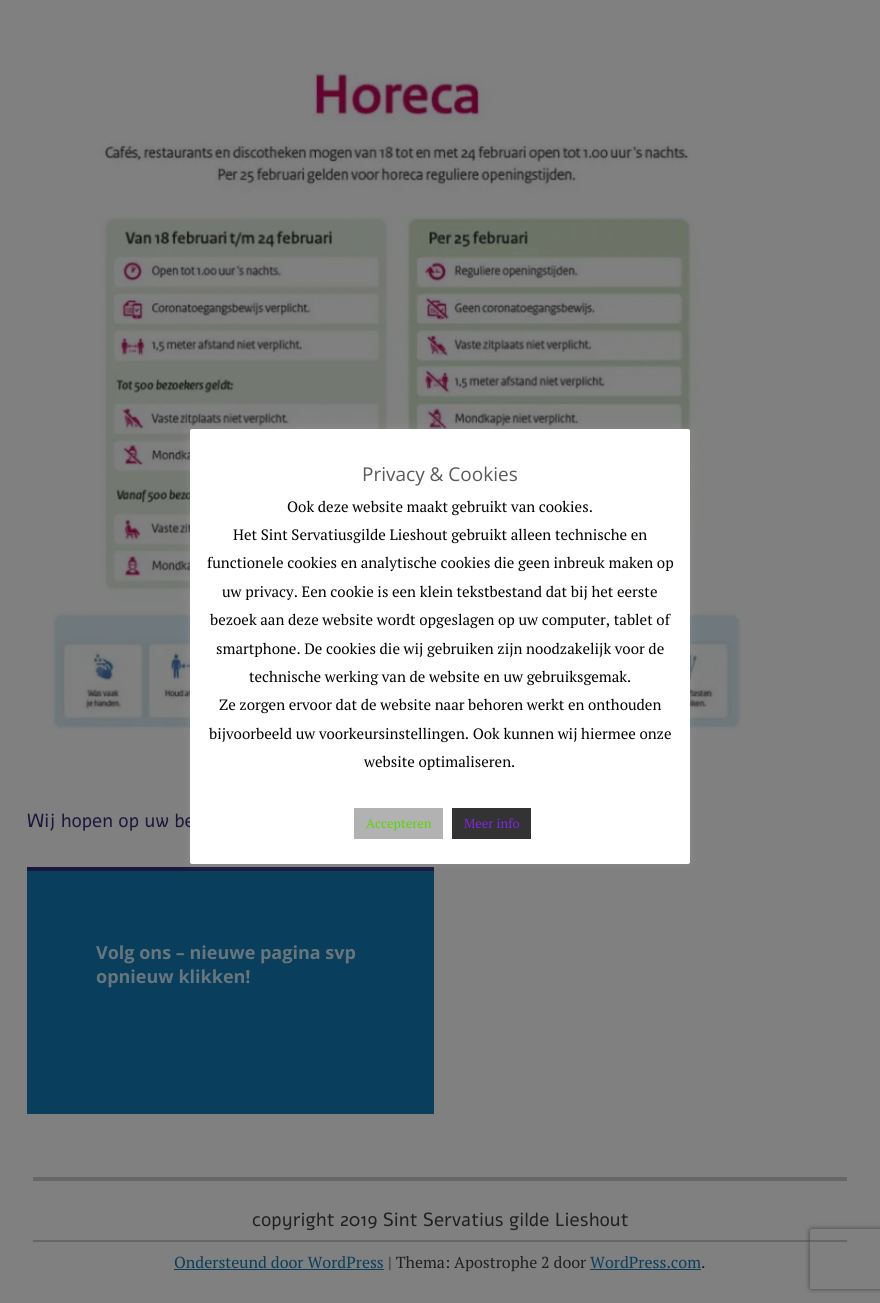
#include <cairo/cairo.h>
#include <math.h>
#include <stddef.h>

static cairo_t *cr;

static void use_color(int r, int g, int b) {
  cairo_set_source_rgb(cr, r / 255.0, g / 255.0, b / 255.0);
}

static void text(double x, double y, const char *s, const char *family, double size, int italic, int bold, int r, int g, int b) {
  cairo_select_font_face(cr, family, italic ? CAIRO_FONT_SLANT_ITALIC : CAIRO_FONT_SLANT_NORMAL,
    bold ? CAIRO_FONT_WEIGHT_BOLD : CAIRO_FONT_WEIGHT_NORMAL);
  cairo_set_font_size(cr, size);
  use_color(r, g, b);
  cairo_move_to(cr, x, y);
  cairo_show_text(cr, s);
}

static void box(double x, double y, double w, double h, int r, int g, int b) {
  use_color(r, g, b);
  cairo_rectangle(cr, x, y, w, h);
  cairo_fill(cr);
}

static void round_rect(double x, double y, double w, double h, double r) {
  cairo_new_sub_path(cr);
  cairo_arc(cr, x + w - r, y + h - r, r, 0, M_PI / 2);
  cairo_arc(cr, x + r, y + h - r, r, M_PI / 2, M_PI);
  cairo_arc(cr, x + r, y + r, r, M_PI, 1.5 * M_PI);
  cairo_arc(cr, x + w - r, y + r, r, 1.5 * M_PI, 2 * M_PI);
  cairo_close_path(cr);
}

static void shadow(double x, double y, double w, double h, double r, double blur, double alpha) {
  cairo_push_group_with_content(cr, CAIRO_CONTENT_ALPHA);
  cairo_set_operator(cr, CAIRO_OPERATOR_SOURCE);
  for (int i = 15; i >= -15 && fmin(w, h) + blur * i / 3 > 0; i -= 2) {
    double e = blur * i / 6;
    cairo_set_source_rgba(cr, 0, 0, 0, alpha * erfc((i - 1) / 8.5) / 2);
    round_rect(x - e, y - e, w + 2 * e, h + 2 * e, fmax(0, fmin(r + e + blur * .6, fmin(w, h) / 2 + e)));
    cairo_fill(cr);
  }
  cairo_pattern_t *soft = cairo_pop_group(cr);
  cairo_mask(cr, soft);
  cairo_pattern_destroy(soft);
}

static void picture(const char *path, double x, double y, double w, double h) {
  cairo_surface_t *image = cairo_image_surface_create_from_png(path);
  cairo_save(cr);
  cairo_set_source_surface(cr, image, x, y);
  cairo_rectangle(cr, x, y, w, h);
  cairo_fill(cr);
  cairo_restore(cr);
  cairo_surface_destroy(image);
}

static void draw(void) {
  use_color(128, 128, 128);
  cairo_paint(cr);
  picture("img_01.png", 52, 72, 690, 658);
  box(27, 871, 407, 243, 9, 62, 92);
  box(27, 867, 407, 4, 27, 23, 60);
  use_color(172, 171, 171);
  shadow(190, 428, 500, 435, 2, 5, 0.3);
  box(33, 1177, 814, 4, 102, 102, 102);
  box(33, 1240, 814, 2, 102, 102, 102);
  box(174, 1269, 210, 1, 9, 62, 92);
  box(590, 1269, 111, 1, 9, 62, 92);
  cairo_save(cr);
  cairo_set_fill_rule(cr, CAIRO_FILL_RULE_EVEN_ODD);
  cairo_new_path(cr);
  cairo_move_to(cr, 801, 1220);
  cairo_line_to(cr, 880, 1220);
  cairo_line_to(cr, 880, 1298);
  cairo_line_to(cr, 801, 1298);
  cairo_close_path(cr);
  cairo_move_to(cr, 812, 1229);
  cairo_line_to(cr, 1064, 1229);
  cairo_curve_to(cr, 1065, 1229, 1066, 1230, 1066, 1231);
  cairo_line_to(cr, 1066, 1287);
  cairo_curve_to(cr, 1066, 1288, 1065, 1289, 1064, 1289);
  cairo_line_to(cr, 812, 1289);
  cairo_curve_to(cr, 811, 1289, 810, 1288, 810, 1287);
  cairo_line_to(cr, 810, 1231);
  cairo_curve_to(cr, 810, 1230, 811, 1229, 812, 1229);
  cairo_close_path(cr);
  cairo_clip(cr);
  use_color(64, 64, 64);
  shadow(810, 1229, 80, 60, 2, 2.5, 1);
  cairo_restore(cr);
  text(27, 827, "Wij hopen op uw be", "Alef", 19, 0, 0, 27, 23, 60);
  use_color(255, 255, 255);
  round_rect(190, 429, 500, 435, 2);
  cairo_fill(cr);
  box(452, 808, 79, 31, 51, 51, 51);
  text(464, 828, "Meer info", "PT Serif", 13, 0, 0, 130, 36, 227);
  box(354, 808, 89, 31, 178, 178, 178);
  text(366, 828, "Accepteren", "PT Serif", 13, 0, 0, 89, 214, 0);
  text(364, 767, "website optimaliseren.", "PT Serif", 15, 0, 0, 0, 0, 0);
  text(209, 739, "bijvoorbeeld uw voorkeursinstellingen. Ook kunnen wij hiermee onze", "PT Serif", 15, 0, 0, 0, 0, 0);
  text(219, 710, "Ze zorgen ervoor dat de website naar behoren werkt en onthouden", "PT Serif", 15, 0, 0, 0, 0, 0);
  text(249, 682, "technische werking van de website en uw gebruiksgemak.", "PT Serif", 15, 0, 0, 0, 0, 0);
  text(216, 654, "smartphone. De cookies die wij gebruiken zijn noodzakelijk voor de", "PT Serif", 15, 0, 0, 0, 0, 0);
  text(210, 625, "bezoek aan deze website wordt opgeslagen op uw computer, tablet of", "PT Serif", 15, 0, 0, 0, 0, 0);
  text(222, 597, "uw privacy. Een cookie is een klein tekstbestand dat bij het eerste", "PT Serif", 15, 0, 0, 0, 0, 0);
  text(207, 568, "functionele cookies en analytische cookies die geen inbreuk maken op", "PT Serif", 15, 0, 0, 0, 0, 0);
  text(233, 540, "Het Sint Servatiusgilde Lieshout gebruikt alleen technische en", "PT Serif", 15, 0, 0, 0, 0, 0);
  text(287, 512, "Ook deze website maakt gebruikt van cookies.", "PT Serif", 15, 0, 0, 0, 0, 0);
  text(362, 481, "Privacy & Cookies", "Open Sans", 19, 0, 0, 90, 90, 90);
  text(96, 959, "Volg ons – nieuwe pagina svp", "Open Sans", 18, 0, 1, 103, 117, 125);
  text(96, 983, "opnieuw klikken!", "Open Sans", 18, 0, 1, 103, 117, 125);
  text(252, 1226, "copyright 2019 Sint Servatius gilde Lieshout", "Alef", 19, 0, 0, 32, 32, 32);
  text(174, 1268, "Ondersteund door WordPress", "PT Serif", 16, 0, 0, 9, 62, 92);
  text(388, 1268, "| Thema: Apostrophe 2 door", "PT Serif", 16, 0, 0, 32, 32, 32);
  text(590, 1268, "WordPress.com", "PT Serif", 16, 0, 0, 9, 62, 92);
  text(701, 1268, ".", "PT Serif", 16, 0, 0, 32, 32, 32);
}

int main(void) {
  cairo_surface_t *surface = cairo_image_surface_create(CAIRO_FORMAT_RGB24, 880, 1303);
  cr = cairo_create(surface);
  cairo_font_options_t *options = cairo_font_options_create();
  cairo_font_options_set_hint_metrics(options, CAIRO_HINT_METRICS_OFF);
  cairo_font_options_set_hint_style(options, CAIRO_HINT_STYLE_NONE);
  cairo_set_font_options(cr, options);
  cairo_set_miter_limit(cr, 4);
  draw();
  cairo_surface_write_to_png(surface, "out.png");
  cairo_font_options_destroy(options);
  cairo_destroy(cr);
  cairo_surface_destroy(surface);
  return 0;
}
